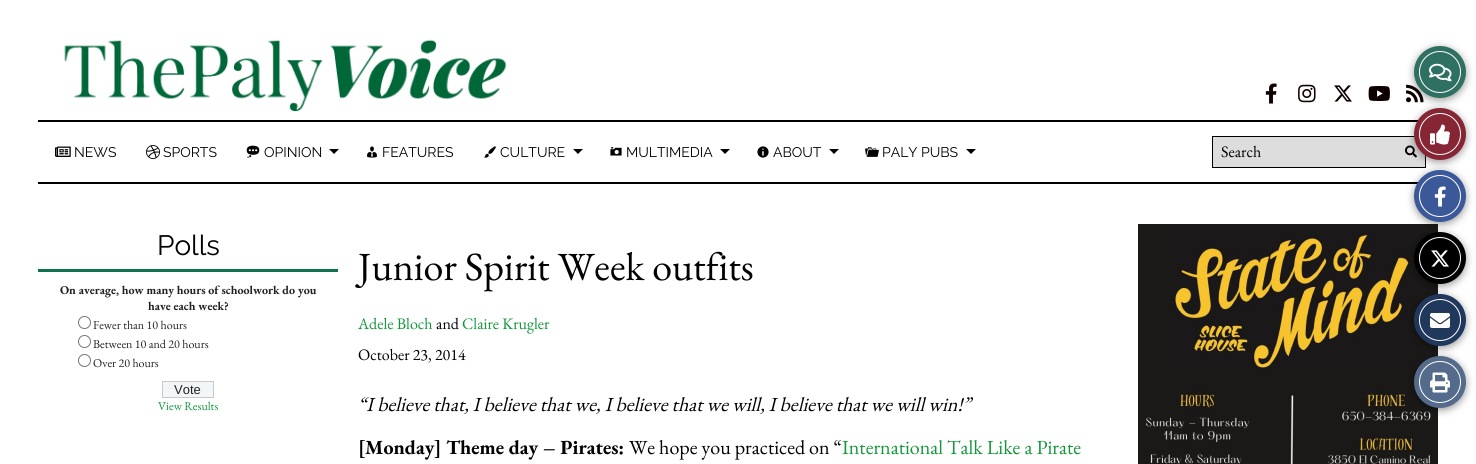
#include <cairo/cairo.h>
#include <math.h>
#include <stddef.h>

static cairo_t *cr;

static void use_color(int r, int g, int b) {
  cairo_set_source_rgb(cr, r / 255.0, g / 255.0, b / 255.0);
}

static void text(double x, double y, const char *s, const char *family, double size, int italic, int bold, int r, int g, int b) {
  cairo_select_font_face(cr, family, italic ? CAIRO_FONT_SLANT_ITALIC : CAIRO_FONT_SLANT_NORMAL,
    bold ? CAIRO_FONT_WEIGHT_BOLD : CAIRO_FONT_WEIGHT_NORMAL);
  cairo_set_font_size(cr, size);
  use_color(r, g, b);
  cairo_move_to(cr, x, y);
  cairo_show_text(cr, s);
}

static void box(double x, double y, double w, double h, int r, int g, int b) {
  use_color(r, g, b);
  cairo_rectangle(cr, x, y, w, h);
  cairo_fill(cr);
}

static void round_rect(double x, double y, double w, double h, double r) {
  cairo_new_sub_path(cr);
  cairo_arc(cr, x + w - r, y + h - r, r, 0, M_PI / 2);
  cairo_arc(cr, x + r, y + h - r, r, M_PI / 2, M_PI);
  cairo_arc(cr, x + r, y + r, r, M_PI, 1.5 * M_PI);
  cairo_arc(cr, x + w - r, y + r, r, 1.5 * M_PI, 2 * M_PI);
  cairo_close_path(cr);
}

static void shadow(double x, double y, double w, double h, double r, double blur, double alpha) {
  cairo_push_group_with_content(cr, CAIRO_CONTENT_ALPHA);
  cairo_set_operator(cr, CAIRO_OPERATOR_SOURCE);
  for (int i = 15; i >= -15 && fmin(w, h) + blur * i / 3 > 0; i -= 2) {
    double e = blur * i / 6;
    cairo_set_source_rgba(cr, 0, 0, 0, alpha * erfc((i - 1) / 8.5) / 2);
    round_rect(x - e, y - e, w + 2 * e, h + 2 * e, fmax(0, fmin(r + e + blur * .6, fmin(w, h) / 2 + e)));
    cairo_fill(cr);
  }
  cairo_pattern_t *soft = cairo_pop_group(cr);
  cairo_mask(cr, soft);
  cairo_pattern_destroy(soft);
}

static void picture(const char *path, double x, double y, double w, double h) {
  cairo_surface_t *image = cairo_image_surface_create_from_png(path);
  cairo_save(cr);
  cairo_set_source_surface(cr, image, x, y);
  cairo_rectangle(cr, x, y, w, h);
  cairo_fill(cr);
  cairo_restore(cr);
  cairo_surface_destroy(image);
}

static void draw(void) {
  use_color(255, 255, 255);
  cairo_paint(cr);
  box(38, 120, 1381, 2, 0, 0, 0);
  picture("img_01.png", 64, 39, 443, 73);
  picture("img_02.png", 1265, 83, 12, 21);
  picture("img_03.png", 1298, 84, 18, 19);
  picture("img_04.png", 1334, 85, 18, 17);
  picture("img_05.png", 1368, 86, 22, 15);
  picture("img_06.png", 1406, 84, 18, 19);
  box(38, 182, 1381, 2, 0, 0, 0);
  picture("img_07.png", 55, 146, 16, 11);
  picture("img_08.png", 146, 145, 14, 14);
  picture("img_09.png", 246, 145, 14, 13);
  cairo_new_path(cr);
  cairo_move_to(cr, 329, 149);
  cairo_line_to(cr, 339, 149);
  cairo_line_to(cr, 334, 154);
  cairo_close_path(cr);
  cairo_fill(cr);
  picture("img_10.png", 367, 146, 10, 12);
  picture("img_11.png", 484, 146, 12, 12);
  cairo_new_path(cr);
  cairo_move_to(cr, 573, 149);
  cairo_line_to(cr, 583, 149);
  cairo_line_to(cr, 578, 154);
  cairo_close_path(cr);
  cairo_fill(cr);
  picture("img_12.png", 610, 147, 12, 9);
  cairo_new_path(cr);
  cairo_move_to(cr, 720, 149);
  cairo_line_to(cr, 730, 149);
  cairo_line_to(cr, 725, 154);
  cairo_close_path(cr);
  cairo_fill(cr);
  picture("img_13.png", 757, 146, 12, 12);
  cairo_new_path(cr);
  cairo_move_to(cr, 829, 149);
  cairo_line_to(cr, 839, 149);
  cairo_line_to(cr, 834, 154);
  cairo_close_path(cr);
  cairo_fill(cr);
  picture("img_14.png", 865, 147, 14, 10);
  cairo_new_path(cr);
  cairo_move_to(cr, 966, 149);
  cairo_line_to(cr, 976, 149);
  cairo_line_to(cr, 971, 154);
  cairo_close_path(cr);
  cairo_fill(cr);
  use_color(221, 221, 221);
  cairo_rectangle(cr, 1212.5, 136.5, 213, 31);
  cairo_fill_preserve(cr);
  use_color(0, 0, 0);
  cairo_set_line_width(cr, 1);
  cairo_stroke(cr);
  picture("img_15.png", 1405, 145, 12, 13);
  box(38, 269, 300, 3, 13, 114, 77);
  cairo_arc(cr, 84.5, 322.5, 6, 0, 2 * M_PI);
  use_color(118, 118, 118);
  cairo_stroke(cr);
  cairo_arc(cr, 84.5, 341.5, 6, 0, 2 * M_PI);
  cairo_stroke(cr);
  cairo_arc(cr, 84.5, 360.5, 6, 0, 2 * M_PI);
  cairo_stroke(cr);
  use_color(243, 246, 248);
  cairo_rectangle(cr, 162.5, 381.5, 51, 16);
  cairo_fill_preserve(cr);
  use_color(200, 200, 200);
  cairo_stroke(cr);
  use_color(0, 0, 0);
  shadow(1414, 48, 52, 52, 26, 4, 0.4);
  use_color(46, 112, 97);
  cairo_arc(cr, 1440, 72, 26, 0, 2 * M_PI);
  cairo_fill(cr);
  cairo_arc(cr, 1440, 72, 20.5, 0, 2 * M_PI);
  use_color(255, 255, 255);
  cairo_stroke(cr);
  picture("img_16.png", 1429, 63, 23, 19);
  use_color(0, 0, 0);
  shadow(1414, 110, 52, 52, 26, 4, 0.4);
  use_color(134, 38, 53);
  cairo_arc(cr, 1440, 134, 26, 0, 2 * M_PI);
  cairo_fill(cr);
  cairo_arc(cr, 1440, 134, 20.5, 0, 2 * M_PI);
  use_color(255, 255, 255);
  cairo_stroke(cr);
  picture("img_17.png", 1430, 124, 20, 21);
  picture("img_22.png", 1138, 224, 300, 240);
  use_color(0, 0, 0);
  shadow(1414, 172, 52, 52, 26, 4, 0.4);
  use_color(59, 89, 152);
  cairo_arc(cr, 1440, 196, 26, 0, 2 * M_PI);
  cairo_fill(cr);
  cairo_arc(cr, 1440, 196, 20.5, 0, 2 * M_PI);
  use_color(255, 255, 255);
  cairo_stroke(cr);
  picture("img_18.png", 1434, 186, 12, 21);
  use_color(0, 0, 0);
  shadow(1414, 234, 52, 52, 26, 4, 0.4);
  use_color(0, 0, 0);
  cairo_arc(cr, 1440, 258, 26, 0, 2 * M_PI);
  cairo_fill(cr);
  cairo_arc(cr, 1440, 258, 20.5, 0, 2 * M_PI);
  use_color(255, 255, 255);
  cairo_stroke(cr);
  picture("img_19.png", 1431, 250, 18, 17);
  use_color(0, 0, 0);
  shadow(1414, 296, 52, 52, 26, 4, 0.4);
  use_color(31, 56, 92);
  cairo_arc(cr, 1440, 320, 26, 0, 2 * M_PI);
  cairo_fill(cr);
  cairo_arc(cr, 1440, 320, 20.5, 0, 2 * M_PI);
  use_color(255, 255, 255);
  cairo_stroke(cr);
  picture("img_20.png", 1430, 313, 20, 15);
  use_color(0, 0, 0);
  shadow(1414, 358, 52, 52, 26, 4, 0.4);
  use_color(84, 107, 139);
  cairo_arc(cr, 1440, 382, 26, 0, 2 * M_PI);
  cairo_fill(cr);
  cairo_arc(cr, 1440, 382, 20.5, 0, 2 * M_PI);
  use_color(255, 255, 255);
  cairo_stroke(cr);
  picture("img_21.png", 1430, 372, 20, 21);
  text(74, 157, "NEWS", "Raleway", 14, 0, 0, 0, 0, 0);
  text(163, 157, "SPORTS", "Raleway", 14, 0, 0, 0, 0, 0);
  text(264, 157, "OPINION", "Raleway", 14, 0, 0, 0, 0, 0);
  text(382, 157, "FEATURES", "Raleway", 14, 0, 0, 0, 0, 0);
  text(500, 157, "CULTURE", "Raleway", 14, 0, 0, 0, 0, 0);
  text(626, 157, "MULTIMEDIA", "Raleway", 14, 0, 0, 0, 0, 0);
  text(773, 157, "ABOUT", "Raleway", 14, 0, 0, 0, 0, 0);
  text(882, 157, "PALY PUBS", "Raleway", 14, 0, 0, 0, 0, 0);
  text(1221, 157, "Search", "EB Garamond", 16, 0, 0, 0, 0, 0);
  text(157, 255, "Polls", "Raleway", 28, 0, 0, 0, 0, 0);
  text(60, 294, "On average, how many hours of schoolwork do you", "EB Garamond", 12, 0, 1, 34, 34, 34);
  text(148, 310, "have each week?", "EB Garamond", 12, 0, 1, 34, 34, 34);
  text(93, 329, "Fewer than 10 hours", "EB Garamond", 12, 0, 0, 34, 34, 34);
  text(93, 348, "Between 10 and 20 hours", "EB Garamond", 12, 0, 0, 34, 34, 34);
  text(93, 367, "Over 20 hours", "EB Garamond", 12, 0, 0, 34, 34, 34);
  text(174, 394, "Vote", "Liberation Sans", 13, 0, 0, 34, 34, 34);
  text(158, 410, "View Results", "EB Garamond", 12, 0, 0, 17, 151, 58);
  text(358, 280, "Junior Spirit Week outfits", "EB Garamond", 40, 0, 0, 0, 0, 0);
  text(358, 329, "Adele Bloch", "EB Garamond", 16, 0, 0, 17, 151, 58);
  text(436, 329, "and", "EB Garamond", 16, 0, 0, 0, 0, 0);
  text(462, 329, "Claire Krugler", "EB Garamond", 16, 0, 0, 17, 151, 58);
  text(358, 360, "October 23, 2014", "EB Garamond", 16, 0, 0, 0, 0, 0);
  text(358, 411, "“I believe that, I believe that we, I believe that we will, I believe that we will win!”", "EB Garamond", 20, 1, 0, 0, 0, 0);
  text(358, 454, "[Monday] Theme day – Pirates:", "EB Garamond", 20, 0, 1, 0, 0, 0);
  text(629, 454, "We hope you practiced on “", "EB Garamond", 20, 0, 0, 0, 0, 0);
  text(842, 454, "International Talk Like a Pirate", "EB Garamond", 20, 0, 0, 17, 151, 58);
}

int main(void) {
  cairo_surface_t *surface = cairo_image_surface_create(CAIRO_FORMAT_RGB24, 1476, 464);
  cr = cairo_create(surface);
  cairo_font_options_t *options = cairo_font_options_create();
  cairo_font_options_set_hint_metrics(options, CAIRO_HINT_METRICS_OFF);
  cairo_font_options_set_hint_style(options, CAIRO_HINT_STYLE_NONE);
  cairo_set_font_options(cr, options);
  cairo_set_miter_limit(cr, 4);
  draw();
  cairo_surface_write_to_png(surface, "out.png");
  cairo_font_options_destroy(options);
  cairo_destroy(cr);
  cairo_surface_destroy(surface);
  return 0;
}
